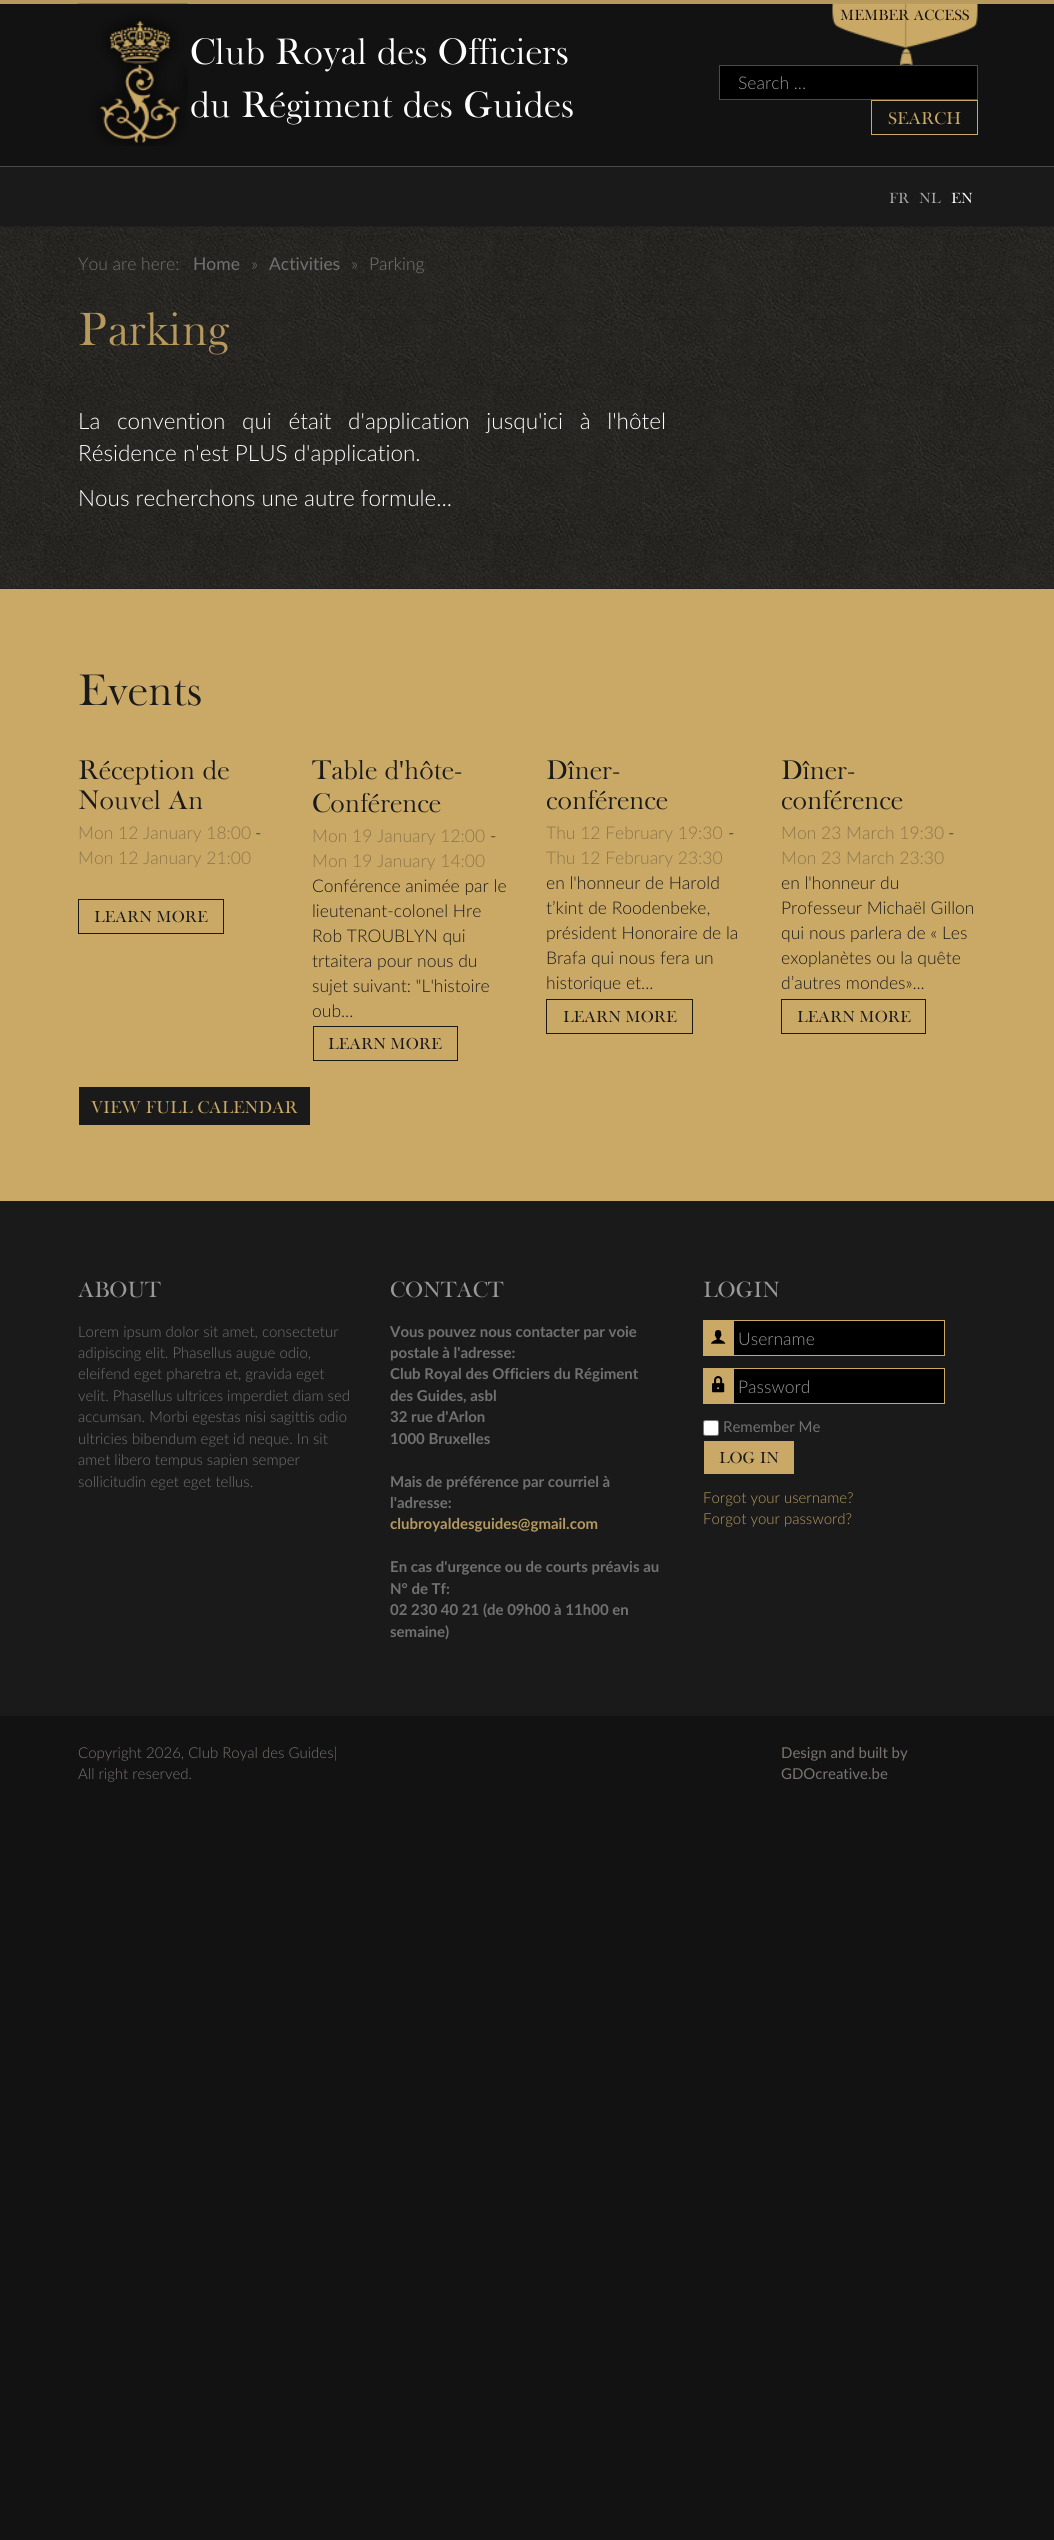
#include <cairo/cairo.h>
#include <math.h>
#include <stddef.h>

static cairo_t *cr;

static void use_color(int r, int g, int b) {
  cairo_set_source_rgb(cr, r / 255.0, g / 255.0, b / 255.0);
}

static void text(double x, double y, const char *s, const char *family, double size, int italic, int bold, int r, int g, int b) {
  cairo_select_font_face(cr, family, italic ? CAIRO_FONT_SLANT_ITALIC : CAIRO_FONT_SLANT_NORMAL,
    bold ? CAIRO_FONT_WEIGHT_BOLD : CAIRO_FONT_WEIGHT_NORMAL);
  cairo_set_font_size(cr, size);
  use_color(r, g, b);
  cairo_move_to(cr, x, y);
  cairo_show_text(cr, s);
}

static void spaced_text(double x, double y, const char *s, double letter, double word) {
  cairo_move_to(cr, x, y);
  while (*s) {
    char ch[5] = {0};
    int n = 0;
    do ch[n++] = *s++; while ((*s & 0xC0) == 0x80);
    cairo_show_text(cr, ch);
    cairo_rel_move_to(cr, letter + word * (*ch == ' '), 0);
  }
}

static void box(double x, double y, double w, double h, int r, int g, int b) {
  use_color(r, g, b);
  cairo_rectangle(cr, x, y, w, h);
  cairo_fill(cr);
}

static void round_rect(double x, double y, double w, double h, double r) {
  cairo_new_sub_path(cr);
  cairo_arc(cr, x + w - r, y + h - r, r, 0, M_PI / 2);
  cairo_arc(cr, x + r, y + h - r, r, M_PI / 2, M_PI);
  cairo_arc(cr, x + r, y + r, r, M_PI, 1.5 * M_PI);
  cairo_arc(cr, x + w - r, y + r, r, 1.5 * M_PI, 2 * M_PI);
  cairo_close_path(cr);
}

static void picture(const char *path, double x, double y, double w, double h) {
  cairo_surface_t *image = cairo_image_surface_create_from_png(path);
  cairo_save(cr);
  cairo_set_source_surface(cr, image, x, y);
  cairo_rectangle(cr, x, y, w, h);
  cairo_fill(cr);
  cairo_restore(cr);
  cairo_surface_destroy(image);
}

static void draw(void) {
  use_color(18, 18, 18);
  cairo_paint(cr);
  box(0, 0, 1054, 4, 183, 153, 94);
  picture("img_01.png", 77, 3, 111, 143);
  picture("img_02.png", 832, 3, 146, 62);
  use_color(0, 0, 0);
  cairo_rectangle(cr, 719.5, 65.5, 258, 34);
  cairo_fill_preserve(cr);
  use_color(74, 74, 74);
  cairo_set_line_width(cr, 1);
  cairo_stroke(cr);
  cairo_rectangle(cr, 871.5, 100.5, 106, 34);
  use_color(202, 169, 103);
  cairo_stroke(cr);
  box(0, 167, 1054, 59, 26, 26, 26);
  box(0, 166, 1054, 1, 74, 74, 74);
  picture("img_03.png", 0, 226, 1054, 363);
  box(0, 589, 1054, 612, 202, 169, 103);
  cairo_rectangle(cr, 78.5, 899.5, 145, 34);
  use_color(26, 26, 26);
  cairo_stroke(cr);
  cairo_rectangle(cr, 313.5, 1026.5, 144, 34);
  cairo_stroke(cr);
  cairo_rectangle(cr, 546.5, 999.5, 146, 34);
  cairo_stroke(cr);
  cairo_rectangle(cr, 781.5, 999.5, 144, 34);
  cairo_stroke(cr);
  box(79, 1087, 231, 38, 26, 26, 26);
  box(0, 1201, 1054, 515, 26, 26, 26);
  box(703, 1320, 30, 36, 202, 169, 103);
  picture("img_04.png", 711, 1330, 15, 14);
  use_color(0, 0, 0);
  cairo_rectangle(cr, 733.5, 1320.5, 211, 35);
  cairo_fill_preserve(cr);
  use_color(202, 169, 103);
  cairo_stroke(cr);
  box(703, 1368, 30, 36, 202, 169, 103);
  picture("img_05.png", 712, 1376, 13, 17);
  use_color(0, 0, 0);
  cairo_rectangle(cr, 733.5, 1368.5, 211, 35);
  cairo_fill_preserve(cr);
  use_color(202, 169, 103);
  cairo_stroke(cr);
  use_color(255, 255, 255);
  round_rect(703.5, 1420.5, 15, 15, 2);
  cairo_fill_preserve(cr);
  use_color(118, 118, 118);
  cairo_stroke(cr);
  box(704, 1441, 90, 33, 202, 169, 103);
  text(190, 64, "Club Royal des Officiers", "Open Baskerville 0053", 37.5, 0, 0, 255, 255, 255);
  text(190, 117, "du Régiment des Guides", "Open Baskerville 0053", 37.5, 0, 0, 255, 255, 255);
  text(840, 20, "MEMBER ACCESS", "Open Baskerville 0053", 15, 0, 0, 18, 18, 18);
  text(738, 89, "Search ...", "Lato Light", 17.5, 0, 0, 153, 153, 153);
  text(888, 124, "SEARCH", "Open Baskerville 0053", 17.5, 0, 0, 202, 169, 103);
  text(889, 203, "FR", "Open Baskerville 0053", 15, 0, 0, 168, 168, 168);
  text(919, 203, "NL", "Open Baskerville 0053", 15, 0, 0, 168, 168, 168);
  text(951, 203, "EN", "Open Baskerville 0053", 15, 0, 0, 255, 255, 255);
  text(78, 270, "You are here:", "Lato Light", 17.5, 0, 0, 113, 113, 113);
  text(193, 270, "Home", "Lato", 17.5, 0, 0, 113, 113, 113);
  text(251, 270, "»", "Lato Light", 17.5, 0, 0, 113, 113, 113);
  text(269, 270, "Activities", "Lato", 17.5, 0, 0, 113, 113, 113);
  text(351, 270, "»", "Lato Light", 17.5, 0, 0, 113, 113, 113);
  text(369, 270, "Parking", "Lato Light", 17.5, 0, 0, 119, 119, 119);
  text(78, 345, "Parking", "Open Baskerville 0053", 47.5, 0, 0, 183, 153, 94);
  cairo_select_font_face(cr, "Lato Light", CAIRO_FONT_SLANT_NORMAL, CAIRO_FONT_WEIGHT_NORMAL);
  cairo_set_font_size(cr, 22.5);
  use_color(255, 255, 255);
  spaced_text(78, 429, "La convention qui était d'application jusqu'ici à l'hôtel", 0, 10.5);
  text(78, 461, "Résidence n'est PLUS d'application.", "Lato Light", 22.5, 0, 0, 255, 255, 255);
  text(78, 506, "Nous recherchons une autre formule...", "Lato Light", 22.5, 0, 0, 255, 255, 255);
  text(78, 705, "Events", "Open Baskerville 0053", 45, 0, 0, 26, 26, 26);
  text(78, 779, "Réception de", "Open Baskerville 0053", 27.5, 0, 0, 26, 26, 26);
  text(78, 809, "Nouvel An", "Open Baskerville 0053", 27.5, 0, 0, 26, 26, 26);
  text(78, 839, "Mon 12 January 18:00", "Lato Light", 17.5, 0, 0, 140, 117, 74);
  text(255, 839, "-", "Lato Light", 17.5, 0, 0, 26, 26, 26);
  text(78, 864, "Mon 12 January 21:00", "Lato Light", 17.5, 0, 0, 140, 117, 74);
  text(94, 922, "LEARN MORE", "Open Baskerville 0053", 16.25, 0, 0, 26, 26, 26);
  text(312, 779, "Table d", "Open Baskerville 0053", 27.5, 0, 0, 26, 26, 26);
  text(399, 779, "'", "Liberation Serif", 27.5, 0, 0, 26, 26, 26);
  text(404, 779, "hôte-", "Open Baskerville 0053", 27.5, 0, 0, 26, 26, 26);
  text(312, 812, "Conférence", "Open Baskerville 0053", 27.5, 0, 0, 26, 26, 26);
  text(312, 842, "Mon 19 January 12:00", "Lato Light", 17.5, 0, 0, 140, 117, 74);
  text(490, 842, "-", "Lato Light", 17.5, 0, 0, 26, 26, 26);
  text(312, 867, "Mon 19 January 14:00", "Lato Light", 17.5, 0, 0, 140, 117, 74);
  text(312, 892, "Conférence animée par le", "Lato Light", 17.5, 0, 0, 26, 26, 26);
  text(312, 917, "lieutenant-colonel Hre", "Lato Light", 17.5, 0, 0, 26, 26, 26);
  text(312, 942, "Rob TROUBLYN qui", "Lato Light", 17.5, 0, 0, 26, 26, 26);
  text(312, 967, "trtaitera pour nous du", "Lato Light", 17.5, 0, 0, 26, 26, 26);
  text(312, 992, "sujet suivant: \"L'histoire", "Lato Light", 17.5, 0, 0, 26, 26, 26);
  text(312, 1017, "oub...", "Lato Light", 17.5, 0, 0, 26, 26, 26);
  text(328, 1049, "LEARN MORE", "Open Baskerville 0053", 16.25, 0, 0, 26, 26, 26);
  text(546, 779, "Dîner-", "Open Baskerville 0053", 27.5, 0, 0, 26, 26, 26);
  text(546, 809, "conférence", "Open Baskerville 0053", 27.5, 0, 0, 26, 26, 26);
  text(546, 839, "Thu 12 February 19:30", "Lato Light", 17.5, 0, 0, 140, 117, 74);
  text(728, 839, "-", "Lato Light", 17.5, 0, 0, 26, 26, 26);
  text(546, 864, "Thu 12 February 23:30", "Lato Light", 17.5, 0, 0, 140, 117, 74);
  text(546, 889, "en l'honneur de Harold", "Lato Light", 17.5, 0, 0, 26, 26, 26);
  text(546, 914, "t’kint de Roodenbeke,", "Lato Light", 17.5, 0, 0, 26, 26, 26);
  text(546, 939, "président Honoraire de la", "Lato Light", 17.5, 0, 0, 26, 26, 26);
  text(546, 964, "Brafa qui nous fera un", "Lato Light", 17.5, 0, 0, 26, 26, 26);
  text(546, 989, "historique et...", "Lato Light", 17.5, 0, 0, 26, 26, 26);
  text(563, 1022, "LEARN MORE", "Open Baskerville 0053", 16.25, 0, 0, 26, 26, 26);
  text(781, 779, "Dîner-", "Open Baskerville 0053", 27.5, 0, 0, 26, 26, 26);
  text(781, 809, "conférence", "Open Baskerville 0053", 27.5, 0, 0, 26, 26, 26);
  text(781, 839, "Mon 23 March 19:30", "Lato Light", 17.5, 0, 0, 140, 117, 74);
  text(948, 839, "-", "Lato Light", 17.5, 0, 0, 26, 26, 26);
  text(781, 864, "Mon 23 March 23:30", "Lato Light", 17.5, 0, 0, 140, 117, 74);
  text(781, 889, "en l'honneur du", "Lato Light", 17.5, 0, 0, 26, 26, 26);
  text(781, 914, "Professeur Michaël Gillon", "Lato Light", 17.5, 0, 0, 26, 26, 26);
  text(781, 939, "qui nous parlera de « Les", "Lato Light", 17.5, 0, 0, 26, 26, 26);
  text(781, 964, "exoplanètes ou la quête", "Lato Light", 17.5, 0, 0, 26, 26, 26);
  text(781, 989, "d’autres mondes»...", "Lato Light", 17.5, 0, 0, 26, 26, 26);
  text(797, 1022, "LEARN MORE", "Open Baskerville 0053", 16.25, 0, 0, 26, 26, 26);
  text(91, 1113, "VIEW FULL CALENDAR", "Open Baskerville 0053", 17.5, 0, 0, 202, 169, 103);
  text(78, 1297, "ABOUT", "Open Baskerville 0053", 22.5, 0, 0, 153, 153, 153);
  text(78, 1337, "Lorem ipsum dolor sit amet, consectetur", "Lato Light", 15, 0, 0, 113, 113, 113);
  text(78, 1358, "adipiscing elit. Phasellus augue odio,", "Lato Light", 15, 0, 0, 113, 113, 113);
  text(78, 1379, "eleifend eget pharetra et, gravida eget", "Lato Light", 15, 0, 0, 113, 113, 113);
  text(78, 1401, "velit. Phasellus ultrices imperdiet diam sed", "Lato Light", 15, 0, 0, 113, 113, 113);
  text(78, 1422, "accumsan. Morbi egestas nisi sagittis odio", "Lato Light", 15, 0, 0, 113, 113, 113);
  text(78, 1444, "ultricies bibendum eget id neque. In sit", "Lato Light", 15, 0, 0, 113, 113, 113);
  text(78, 1465, "amet libero tempus sapien semper", "Lato Light", 15, 0, 0, 113, 113, 113);
  text(78, 1487, "sollicitudin eget eget tellus.", "Lato Light", 15, 0, 0, 113, 113, 113);
  text(390, 1297, "CONTACT", "Open Baskerville 0053", 22.5, 0, 0, 153, 153, 153);
  text(390, 1337, "Vous pouvez nous contacter par voie", "Lato", 15, 0, 1, 113, 113, 113);
  text(390, 1358, "postale à l'adresse:", "Lato", 15, 0, 1, 113, 113, 113);
  text(390, 1379, "Club Royal des Officiers du Régiment", "Lato", 15, 0, 1, 113, 113, 113);
  text(390, 1401, "des Guides, asbl", "Lato", 15, 0, 1, 113, 113, 113);
  text(390, 1422, "32 rue d'Arlon", "Lato", 15, 0, 1, 113, 113, 113);
  text(390, 1444, "1000 Bruxelles", "Lato", 15, 0, 1, 113, 113, 113);
  text(390, 1487, "Mais de préférence par courriel à", "Lato", 15, 0, 1, 113, 113, 113);
  text(390, 1508, "l'adresse:", "Lato", 15, 0, 1, 113, 113, 113);
  text(390, 1529, "clubroyaldesguides@gmail.com", "Lato", 15, 0, 1, 183, 153, 94);
  text(390, 1572, "En cas d'urgence ou de courts préavis au", "Lato", 15, 0, 1, 113, 113, 113);
  text(390, 1594, "N° de Tf:", "Lato", 15, 0, 1, 113, 113, 113);
  text(390, 1615, "02 230 40 21 (de 09h00 à 11h00 en", "Lato", 15, 0, 1, 113, 113, 113);
  text(390, 1637, "semaine)", "Lato", 15, 0, 1, 113, 113, 113);
  text(703, 1297, "LOGIN", "Open Baskerville 0053", 22.5, 0, 0, 153, 153, 153);
  text(738, 1345, "Username", "Lato Light", 17.5, 0, 0, 153, 153, 153);
  text(738, 1393, "Password", "Lato Light", 17.5, 0, 0, 153, 153, 153);
  text(723, 1432, "Remember Me", "Lato", 15, 0, 0, 113, 113, 113);
  text(719, 1463, "LOG IN", "Open Baskerville 0053", 16.25, 0, 0, 26, 26, 26);
  text(703, 1503, "Forgot your username?", "Lato Light", 15, 0, 0, 183, 153, 94);
  text(703, 1524, "Forgot your password?", "Lato Light", 15, 0, 0, 183, 153, 94);
  text(78, 1758, "Copyright 2026, Club Royal des Guides|", "Lato Light", 15, 0, 0, 121, 115, 112);
  text(78, 1779, "All right reserved.", "Lato Light", 15, 0, 0, 121, 115, 112);
  text(781, 1758, "Design and built by", "Lato", 15, 0, 0, 121, 115, 112);
  text(781, 1779, "GDOcreative.be", "Lato", 15, 0, 0, 121, 115, 112);
}

int main(void) {
  cairo_surface_t *surface = cairo_image_surface_create(CAIRO_FORMAT_RGB24, 1054, 2540);
  cr = cairo_create(surface);
  cairo_font_options_t *options = cairo_font_options_create();
  cairo_font_options_set_hint_metrics(options, CAIRO_HINT_METRICS_OFF);
  cairo_font_options_set_hint_style(options, CAIRO_HINT_STYLE_NONE);
  cairo_set_font_options(cr, options);
  cairo_set_miter_limit(cr, 4);
  draw();
  cairo_surface_write_to_png(surface, "out.png");
  cairo_font_options_destroy(options);
  cairo_destroy(cr);
  cairo_surface_destroy(surface);
  return 0;
}
